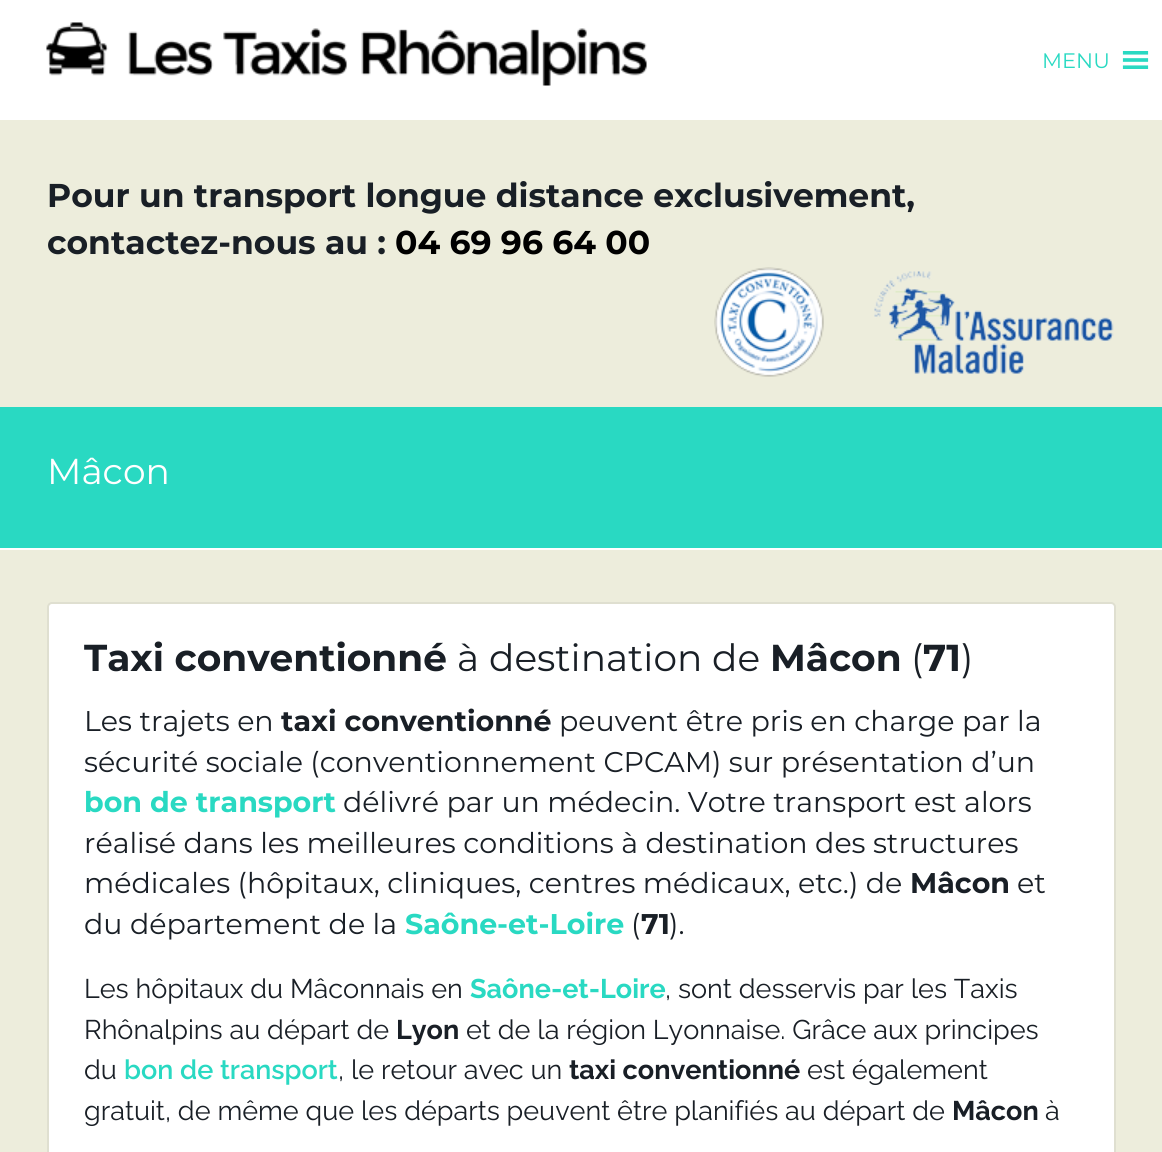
#include <cairo/cairo.h>
#include <math.h>
#include <stddef.h>

static cairo_t *cr;

static void use_color(int r, int g, int b) {
  cairo_set_source_rgb(cr, r / 255.0, g / 255.0, b / 255.0);
}

static void text(double x, double y, const char *s, const char *family, double size, int italic, int bold, int r, int g, int b) {
  cairo_select_font_face(cr, family, italic ? CAIRO_FONT_SLANT_ITALIC : CAIRO_FONT_SLANT_NORMAL,
    bold ? CAIRO_FONT_WEIGHT_BOLD : CAIRO_FONT_WEIGHT_NORMAL);
  cairo_set_font_size(cr, size);
  use_color(r, g, b);
  cairo_move_to(cr, x, y);
  cairo_show_text(cr, s);
}

static void box(double x, double y, double w, double h, int r, int g, int b) {
  use_color(r, g, b);
  cairo_rectangle(cr, x, y, w, h);
  cairo_fill(cr);
}

static void round_rect(double x, double y, double w, double h, double r) {
  cairo_new_sub_path(cr);
  cairo_arc(cr, x + w - r, y + h - r, r, 0, M_PI / 2);
  cairo_arc(cr, x + r, y + h - r, r, M_PI / 2, M_PI);
  cairo_arc(cr, x + r, y + r, r, M_PI, 1.5 * M_PI);
  cairo_arc(cr, x + w - r, y + r, r, 1.5 * M_PI, 2 * M_PI);
  cairo_close_path(cr);
}

static void picture(const char *path, double x, double y, double w, double h) {
  cairo_surface_t *image = cairo_image_surface_create_from_png(path);
  cairo_save(cr);
  cairo_set_source_surface(cr, image, x, y);
  cairo_rectangle(cr, x, y, w, h);
  cairo_fill(cr);
  cairo_restore(cr);
  cairo_surface_destroy(image);
}

static void draw(void) {
  use_color(237, 237, 220);
  cairo_paint(cr);
  box(0, 0, 1162, 120, 255, 255, 255);
  picture("img_01.png", 46, 22, 601, 64);
  picture("img_02.png", 1122, 51, 27, 18);
  picture("img_03.png", 714, 267, 110, 110);
  picture("img_04.png", 874, 271, 240, 103);
  box(0, 407, 1162, 141, 41, 217, 194);
  box(0, 548, 1162, 2, 255, 255, 255);
  round_rect(48, 603, 1067, 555, 4);
  cairo_fill_preserve(cr);
  use_color(223, 223, 208);
  cairo_stroke(cr);
  text(1042, 68, "MENU", "Montserrat", 21, 0, 0, 41, 217, 194);
  text(47, 207, "Pour un transport longue distance exclusivement,", "Montserrat", 33, 0, 1, 25, 31, 38);
  text(47, 254, "contactez-nous au :", "Montserrat", 33, 0, 1, 25, 31, 38);
  text(395, 254, "04 69 96 64 00", "Montserrat", 33, 0, 1, 0, 0, 0);
  text(47, 484, "Mâcon", "Montserrat", 36, 0, 0, 255, 255, 255);
  text(84, 671, "Taxi conventionné", "Montserrat", 37.5, 0, 1, 25, 31, 38);
  text(457, 671, "à destination de", "Montserrat", 37.5, 0, 0, 25, 31, 38);
  text(770, 671, "Mâcon", "Montserrat", 37.5, 0, 1, 25, 31, 38);
  text(911, 671, "(", "Montserrat", 37.5, 0, 0, 25, 31, 38);
  text(923, 671, "71", "Montserrat", 37.5, 0, 1, 25, 31, 38);
  text(961, 671, ")", "Montserrat", 37.5, 0, 0, 25, 31, 38);
  text(84, 731, "Les trajets en", "Montserrat", 28.5, 0, 0, 25, 31, 38);
  text(281, 731, "taxi conventionné", "Montserrat", 28.5, 0, 1, 25, 31, 38);
  text(559, 731, "peuvent être pris en charge par la", "Montserrat", 28.5, 0, 0, 25, 31, 38);
  text(84, 772, "sécurité sociale (conventionnement CPCAM) sur présentation d’un", "Montserrat", 28.5, 0, 0, 25, 31, 38);
  text(84, 812, "bon de transport", "Montserrat", 28.5, 0, 1, 41, 217, 194);
  text(343, 812, "délivré par un médecin. Votre transport est alors", "Montserrat", 28.5, 0, 0, 25, 31, 38);
  text(84, 853, "réalisé dans les meilleures conditions à destination des structures", "Montserrat", 28.5, 0, 0, 25, 31, 38);
  text(84, 893, "médicales (hôpitaux, cliniques, centres médicaux, etc.) de", "Montserrat", 28.5, 0, 0, 25, 31, 38);
  text(910, 893, "Mâcon", "Montserrat", 28.5, 0, 1, 25, 31, 38);
  text(1017, 893, "et", "Montserrat", 28.5, 0, 0, 25, 31, 38);
  text(84, 934, "du département de la", "Montserrat", 28.5, 0, 0, 25, 31, 38);
  text(405, 934, "Saône-et-Loire", "Montserrat", 28.5, 0, 1, 41, 217, 194);
  text(631, 934, "(", "Montserrat", 28.5, 0, 0, 25, 31, 38);
  text(641, 934, "71", "Montserrat", 28.5, 0, 1, 25, 31, 38);
  text(669, 934, ").", "Montserrat", 28.5, 0, 0, 25, 31, 38);
  text(84, 998, "Les hôpitaux du Mâconnais en", "Raleway", 27, 0, 0, 25, 31, 38);
  text(470, 998, "Saône-et-Loire", "Raleway", 27, 0, 1, 41, 217, 194);
  text(665, 998, ", sont desservis par les Taxis", "Raleway", 27, 0, 0, 25, 31, 38);
  text(84, 1039, "Rhônalpins au départ de", "Raleway", 27, 0, 0, 25, 31, 38);
  text(396, 1039, "Lyon", "Raleway", 27, 0, 1, 25, 31, 38);
  text(466, 1039, "et de la région Lyonnaise. Grâce aux principes", "Raleway", 27, 0, 0, 25, 31, 38);
  text(84, 1079, "du", "Raleway", 27, 0, 0, 25, 31, 38);
  text(124, 1079, "bon de transport", "Raleway SemiBold", 27, 0, 0, 41, 217, 194);
  text(338, 1079, ", le retour avec un", "Raleway", 27, 0, 0, 25, 31, 38);
  text(569, 1079, "taxi conventionné", "Raleway", 27, 0, 1, 25, 31, 38);
  text(807, 1079, "est également", "Raleway", 27, 0, 0, 25, 31, 38);
  text(84, 1120, "gratuit, de même que les départs peuvent être planifiés au départ de", "Raleway", 27, 0, 0, 25, 31, 38);
  text(952, 1120, "Mâcon", "Raleway", 27, 0, 1, 25, 31, 38);
  text(1045, 1120, "à", "Raleway", 27, 0, 0, 25, 31, 38);
}

int main(void) {
  cairo_surface_t *surface = cairo_image_surface_create(CAIRO_FORMAT_RGB24, 1162, 1152);
  cr = cairo_create(surface);
  cairo_font_options_t *options = cairo_font_options_create();
  cairo_font_options_set_hint_metrics(options, CAIRO_HINT_METRICS_OFF);
  cairo_font_options_set_hint_style(options, CAIRO_HINT_STYLE_NONE);
  cairo_set_font_options(cr, options);
  cairo_set_miter_limit(cr, 4);
  draw();
  cairo_surface_write_to_png(surface, "out.png");
  cairo_font_options_destroy(options);
  cairo_destroy(cr);
  cairo_surface_destroy(surface);
  return 0;
}
